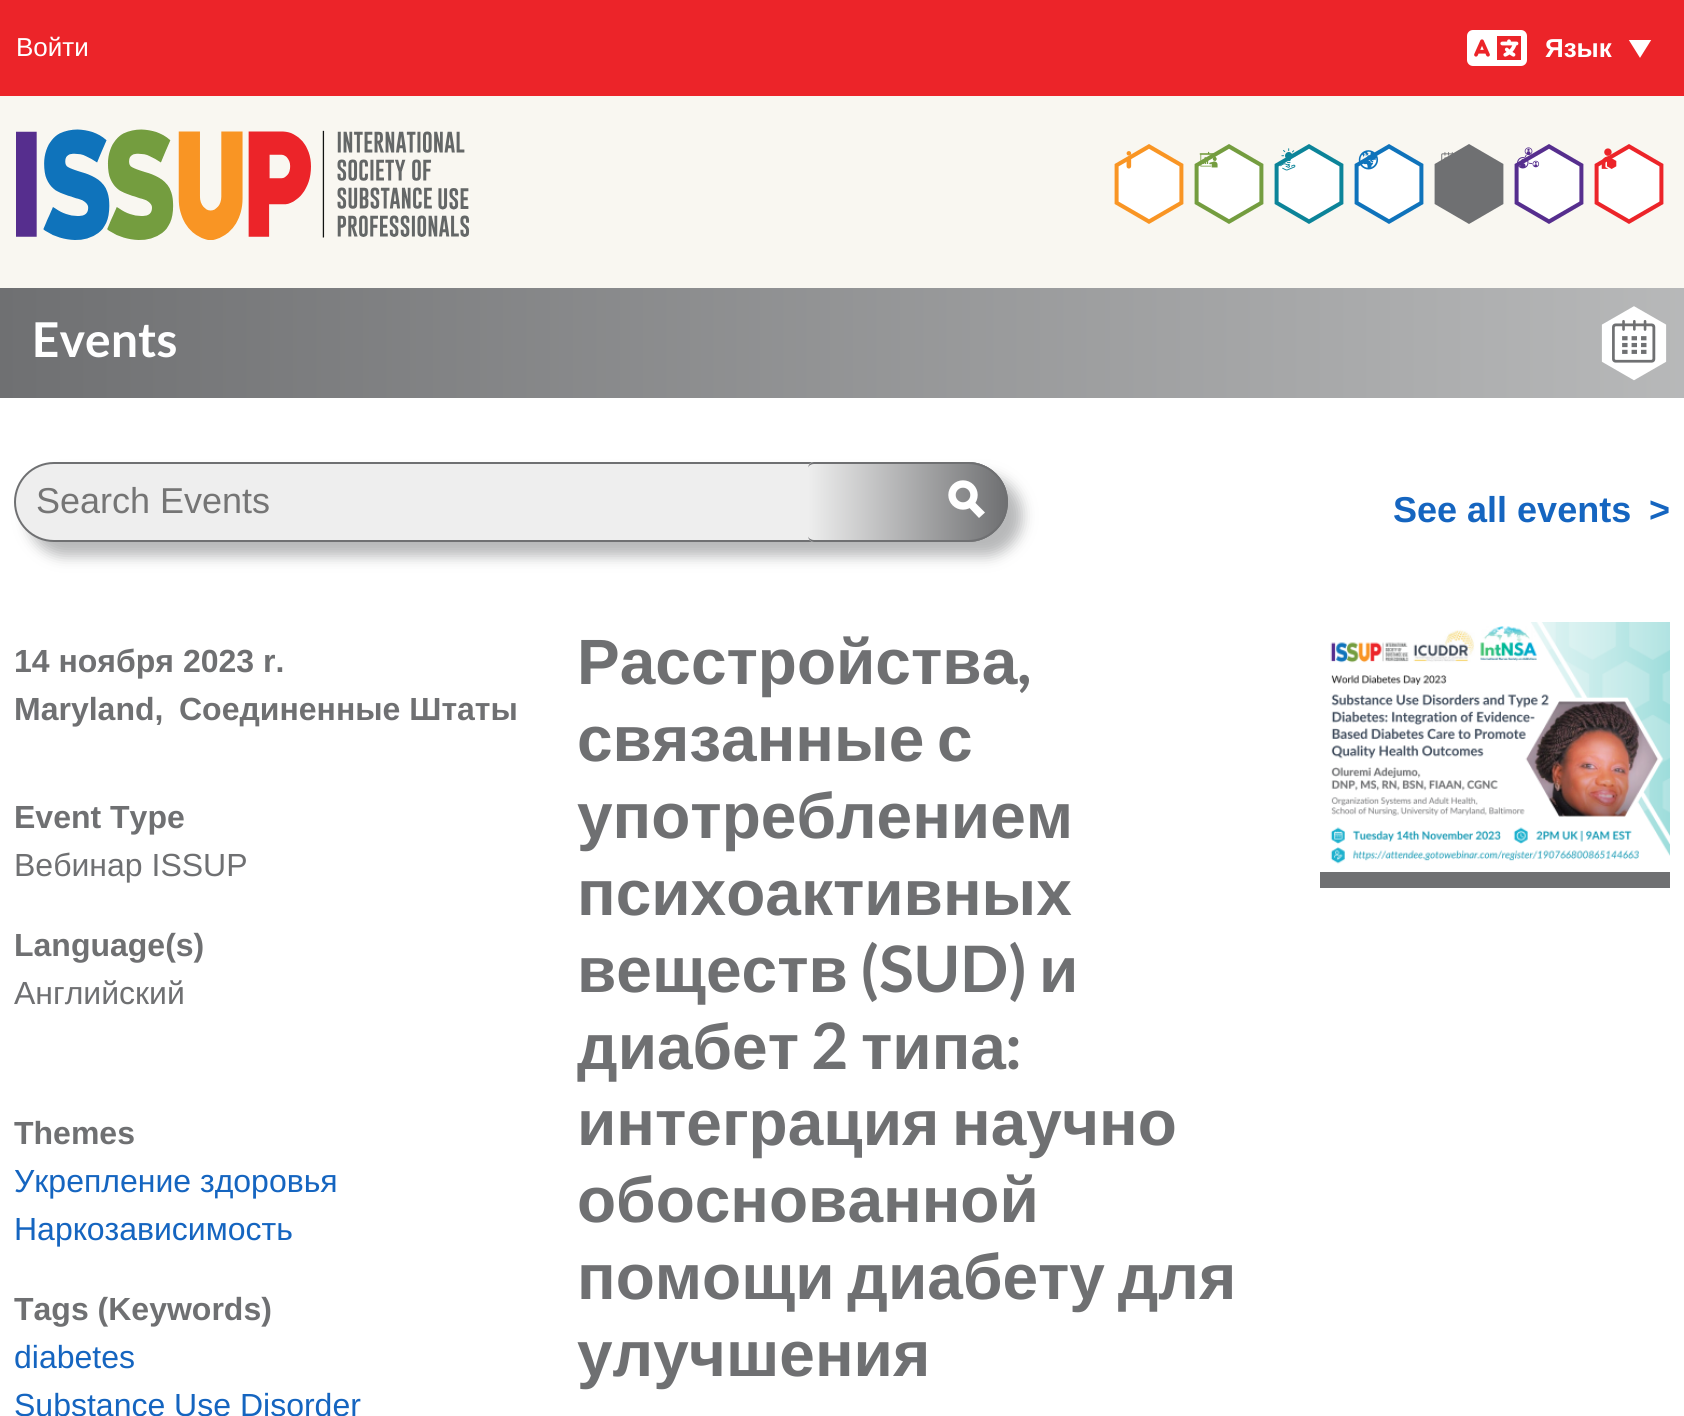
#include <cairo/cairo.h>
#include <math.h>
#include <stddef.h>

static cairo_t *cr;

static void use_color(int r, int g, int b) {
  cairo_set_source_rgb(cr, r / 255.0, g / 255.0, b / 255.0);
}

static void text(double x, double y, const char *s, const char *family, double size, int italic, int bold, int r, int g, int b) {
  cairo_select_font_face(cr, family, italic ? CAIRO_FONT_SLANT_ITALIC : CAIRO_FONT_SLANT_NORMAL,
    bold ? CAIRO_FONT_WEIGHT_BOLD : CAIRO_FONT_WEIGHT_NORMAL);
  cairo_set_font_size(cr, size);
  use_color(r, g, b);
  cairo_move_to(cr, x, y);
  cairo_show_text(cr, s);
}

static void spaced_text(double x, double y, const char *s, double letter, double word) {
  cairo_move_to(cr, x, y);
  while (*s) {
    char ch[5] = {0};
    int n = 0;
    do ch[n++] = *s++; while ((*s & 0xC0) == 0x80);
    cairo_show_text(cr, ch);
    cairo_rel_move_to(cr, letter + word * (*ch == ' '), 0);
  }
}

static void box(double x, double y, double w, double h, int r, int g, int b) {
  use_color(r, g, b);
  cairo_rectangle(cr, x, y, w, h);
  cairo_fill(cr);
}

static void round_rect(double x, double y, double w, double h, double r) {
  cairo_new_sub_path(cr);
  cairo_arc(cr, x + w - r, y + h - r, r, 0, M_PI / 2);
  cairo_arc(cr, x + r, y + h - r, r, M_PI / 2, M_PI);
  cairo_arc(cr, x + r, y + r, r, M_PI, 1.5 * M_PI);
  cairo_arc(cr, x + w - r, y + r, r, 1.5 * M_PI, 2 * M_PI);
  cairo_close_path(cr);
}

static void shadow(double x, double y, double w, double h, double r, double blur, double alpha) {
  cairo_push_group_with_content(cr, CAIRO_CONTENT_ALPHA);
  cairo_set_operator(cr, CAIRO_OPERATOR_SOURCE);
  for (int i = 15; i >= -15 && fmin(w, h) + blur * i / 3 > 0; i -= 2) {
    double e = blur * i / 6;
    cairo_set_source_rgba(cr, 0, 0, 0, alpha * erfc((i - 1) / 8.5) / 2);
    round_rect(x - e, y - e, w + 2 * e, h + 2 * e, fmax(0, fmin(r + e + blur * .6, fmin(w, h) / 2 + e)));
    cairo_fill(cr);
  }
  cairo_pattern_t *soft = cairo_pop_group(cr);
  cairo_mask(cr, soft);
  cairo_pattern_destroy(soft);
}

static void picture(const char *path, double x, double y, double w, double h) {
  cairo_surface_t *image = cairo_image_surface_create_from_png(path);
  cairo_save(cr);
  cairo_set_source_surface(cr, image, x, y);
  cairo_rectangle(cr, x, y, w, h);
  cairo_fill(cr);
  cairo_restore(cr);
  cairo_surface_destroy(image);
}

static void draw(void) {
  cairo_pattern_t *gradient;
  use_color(255, 255, 255);
  cairo_paint(cr);
  box(0, 96, 1684, 192, 249, 247, 241);
  box(0, 0, 1684, 96, 236, 36, 41);
  picture("img_01.png", 1467, 30, 60, 36);
  use_color(255, 255, 255);
  cairo_new_path(cr);
  cairo_move_to(cr, 1630, 40);
  cairo_line_to(cr, 1650, 40);
  cairo_line_to(cr, 1640, 56);
  cairo_close_path(cr);
  cairo_fill(cr);
  cairo_save(cr);
  cairo_rectangle(cr, 1628, 40, 24, 18);
  cairo_clip(cr);
  cairo_new_path(cr);
  cairo_move_to(cr, 1630, 40);
  cairo_line_to(cr, 1650, 40);
  cairo_line_to(cr, 1640, 56);
  cairo_close_path(cr);
  cairo_stroke(cr);
  cairo_restore(cr);
  picture("img_02.png", 16, 129, 454, 111);
  picture("img_03.png", 1114, 144, 70, 80);
  picture("img_04.png", 1194, 144, 70, 80);
  picture("img_05.png", 1274, 144, 70, 80);
  picture("img_06.png", 1354, 144, 70, 80);
  picture("img_07.png", 1434, 144, 70, 80);
  picture("img_08.png", 1514, 144, 70, 80);
  picture("img_09.png", 1594, 144, 70, 80);
  gradient = cairo_pattern_create_linear(0, 343, 1684, 343);
  cairo_pattern_add_color_stop_rgba(gradient, 0, 0.435, 0.439, 0.447, 1);
  cairo_pattern_add_color_stop_rgba(gradient, 1, 0.718, 0.722, 0.725, 1);
  cairo_set_source(cr, gradient);
  cairo_pattern_destroy(gradient);
  cairo_rectangle(cr, 0, 288, 1684, 110);
  cairo_fill(cr);
  picture("img_10.png", 1601, 306, 66, 75);
  use_color(183, 184, 185);
  shadow(28, 476, 994, 80, 40, 7, 1);
  use_color(238, 238, 238);
  round_rect(15, 463, 992, 78, 39);
  cairo_fill_preserve(cr);
  use_color(111, 112, 114);
  cairo_stroke(cr);
  cairo_save(cr);
  cairo_new_path(cr);
  cairo_move_to(cr, 814, 462);
  cairo_line_to(cr, 968, 462);
  cairo_curve_to(cr, 990, 462, 1008, 480, 1008, 502);
  cairo_curve_to(cr, 1008, 524, 990, 542, 968, 542);
  cairo_line_to(cr, 814, 542);
  cairo_curve_to(cr, 810.5, 542, 808, 539.5, 808, 536);
  cairo_line_to(cr, 808, 468);
  cairo_curve_to(cr, 808, 464.5, 810.5, 462, 814, 462);
  cairo_close_path(cr);
  cairo_clip(cr);
  gradient = cairo_pattern_create_linear(808, 502, 1006, 502);
  cairo_pattern_add_color_stop_rgba(gradient, 0, 0.933, 0.933, 0.933, 1);
  cairo_pattern_add_color_stop_rgba(gradient, 1, 0.435, 0.439, 0.447, 1);
  cairo_set_source(cr, gradient);
  cairo_pattern_destroy(gradient);
  cairo_new_path(cr);
  cairo_move_to(cr, 814, 462);
  cairo_line_to(cr, 1006, 462);
  cairo_line_to(cr, 1006, 542);
  cairo_line_to(cr, 814, 542);
  cairo_curve_to(cr, 810.5, 542, 808, 539.5, 808, 536);
  cairo_line_to(cr, 808, 468);
  cairo_curve_to(cr, 808, 464.5, 810.5, 462, 814, 462);
  cairo_close_path(cr);
  cairo_fill(cr);
  cairo_restore(cr);
  cairo_set_fill_rule(cr, CAIRO_FILL_RULE_EVEN_ODD);
  cairo_new_path(cr);
  cairo_move_to(cr, 814, 462);
  cairo_line_to(cr, 968, 462);
  cairo_curve_to(cr, 990, 462, 1008, 480, 1008, 502);
  cairo_curve_to(cr, 1008, 524, 990, 542, 968, 542);
  cairo_line_to(cr, 814, 542);
  cairo_curve_to(cr, 811, 542, 808, 539, 808, 536);
  cairo_line_to(cr, 808, 468);
  cairo_curve_to(cr, 808, 465, 811, 462, 814, 462);
  cairo_close_path(cr);
  cairo_move_to(cr, 814, 464);
  cairo_line_to(cr, 968, 464);
  cairo_curve_to(cr, 989, 464, 1006, 481, 1006, 502);
  cairo_curve_to(cr, 1006, 523, 989, 540, 968, 540);
  cairo_line_to(cr, 814, 540);
  cairo_curve_to(cr, 811, 540, 808, 538, 808, 536);
  cairo_line_to(cr, 808, 468);
  cairo_curve_to(cr, 808, 466, 811, 464, 814, 464);
  cairo_close_path(cr);
  cairo_fill(cr);
  use_color(255, 255, 255);
  cairo_set_fill_rule(cr, CAIRO_FILL_RULE_WINDING);
  cairo_new_path(cr);
  cairo_move_to(cr, 968, 506.5);
  cairo_line_to(cr, 973.5, 501);
  cairo_line_to(cr, 985, 512.5);
  cairo_line_to(cr, 979, 518);
  cairo_fill(cr);
  cairo_arc(cr, 963, 495, 11, 0, 2 * M_PI);
  cairo_set_line_width(cr, 7.4);
  cairo_stroke(cr);
  box(1320, 872, 350, 16, 111, 112, 114);
  picture("img_11.png", 1330, 622, 340, 242);
  text(16, 56, "Войти", "Liberation Sans", 26, 0, 0, 255, 255, 255);
  text(1545, 57, "Язык", "Liberation Sans", 26, 0, 1, 255, 255, 255);
  text(32, 357, "Events", "Lato", 48, 0, 1, 255, 255, 255);
  text(36, 513, "Search Events", "Liberation Sans", 36, 0, 0, 117, 117, 117);
  text(1393, 522, "See all events", "Liberation Sans", 36, 0, 1, 21, 101, 192);
  text(1649, 522, ">", "Liberation Sans", 36, 0, 1, 21, 101, 192);
  text(14, 672, "14 ноября 2023 r.", "Liberation Sans", 32, 0, 1, 111, 112, 114);
  text(14, 720, "Maryland,", "Liberation Sans", 32, 0, 1, 111, 112, 114);
  text(179, 720, "Соединенные Штаты", "Liberation Sans", 32, 0, 1, 111, 112, 114);
  text(14, 828, "Event Type", "Liberation Sans", 32, 0, 1, 111, 112, 114);
  text(14, 876, "Вебинар ISSUP", "Liberation Sans", 32, 0, 0, 111, 112, 114);
  text(14, 956, "Language(s)", "Liberation Sans", 32, 0, 1, 111, 112, 114);
  text(14, 1004, "Английский", "Liberation Sans", 32, 0, 0, 111, 112, 114);
  text(14, 1144, "Themes", "Liberation Sans", 32, 0, 1, 111, 112, 114);
  text(14, 1192, "Укрепление здоровья", "Liberation Sans", 32, 0, 0, 21, 101, 192);
  text(14, 1240, "Наркозависимость", "Liberation Sans", 32, 0, 0, 21, 101, 192);
  text(14, 1320, "Tags (Keywords)", "Liberation Sans", 32, 0, 1, 111, 112, 114);
  text(14, 1368, "diabetes", "Liberation Sans", 32, 0, 0, 21, 101, 192);
  text(14, 1416, "Substance Use Disorder", "Liberation Sans", 32, 0, 0, 21, 101, 192);
  text(577, 684, "Расстройства", "Liberation Sans", 64, 0, 1, 111, 112, 114);
  text(1017, 684, ",", "Lato", 64, 0, 1, 111, 112, 114);
  cairo_select_font_face(cr, "Liberation Sans", CAIRO_FONT_SLANT_NORMAL, CAIRO_FONT_WEIGHT_BOLD);
  spaced_text(577, 761, "связанные с", 0, -5);
  text(577, 838, "употреблением", "Liberation Sans", 64, 0, 1, 111, 112, 114);
  text(577, 915, "психоактивных", "Liberation Sans", 64, 0, 1, 111, 112, 114);
  text(577, 992, "веществ", "Liberation Sans", 64, 0, 1, 111, 112, 114);
  text(860, 992, "(SUD)", "Lato", 64, 0, 1, 111, 112, 114);
  text(1039, 992, "и", "Liberation Sans", 64, 0, 1, 111, 112, 114);
  text(577, 1069, "диабет", "Liberation Sans", 64, 0, 1, 111, 112, 114);
  text(811, 1069, "2", "Lato", 64, 0, 1, 111, 112, 114);
  text(861, 1069, "типа", "Liberation Sans", 64, 0, 1, 111, 112, 114);
  text(1005, 1069, ":", "Lato", 64, 0, 1, 111, 112, 114);
  cairo_select_font_face(cr, "Liberation Sans", CAIRO_FONT_SLANT_NORMAL, CAIRO_FONT_WEIGHT_BOLD);
  spaced_text(577, 1145, "интеграция научно", 0, -5);
  text(577, 1222, "обоснованной", "Liberation Sans", 64, 0, 1, 111, 112, 114);
  spaced_text(577, 1299, "помощи диабету для", 0, -5);
  text(577, 1376, "улучшения", "Liberation Sans", 64, 0, 1, 111, 112, 114);
}

int main(void) {
  cairo_surface_t *surface = cairo_image_surface_create(CAIRO_FORMAT_RGB24, 1684, 1416);
  cr = cairo_create(surface);
  cairo_font_options_t *options = cairo_font_options_create();
  cairo_font_options_set_hint_metrics(options, CAIRO_HINT_METRICS_OFF);
  cairo_font_options_set_hint_style(options, CAIRO_HINT_STYLE_NONE);
  cairo_set_font_options(cr, options);
  cairo_set_miter_limit(cr, 4);
  draw();
  cairo_surface_write_to_png(surface, "out.png");
  cairo_font_options_destroy(options);
  cairo_destroy(cr);
  cairo_surface_destroy(surface);
  return 0;
}
